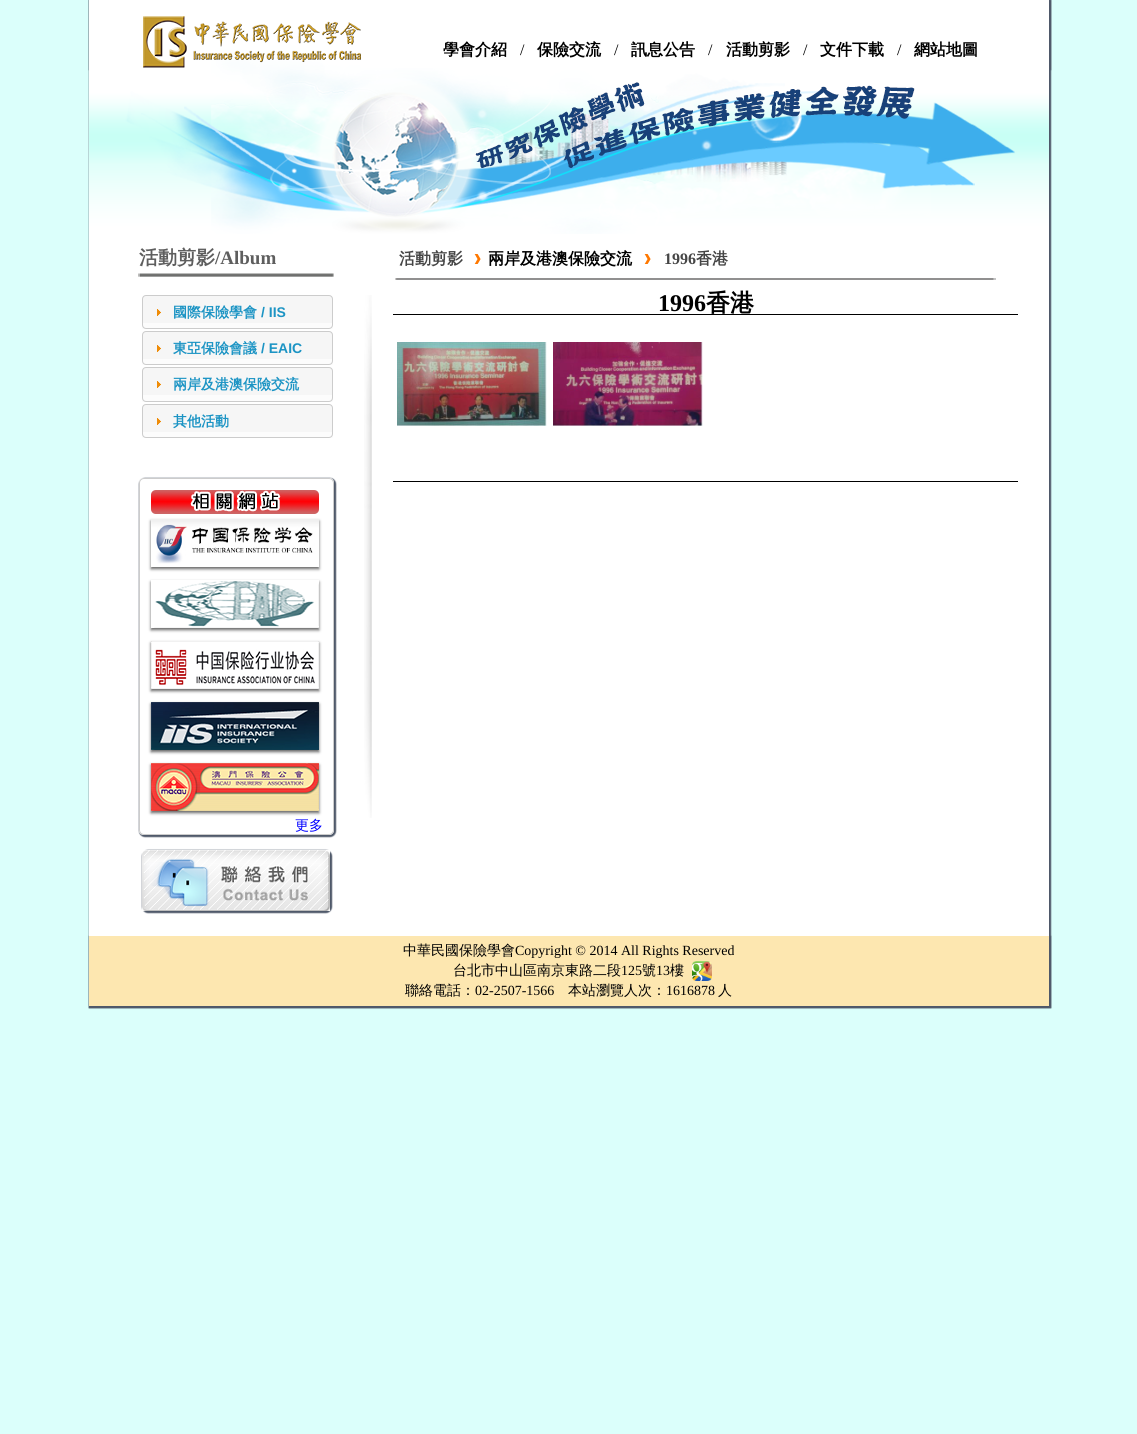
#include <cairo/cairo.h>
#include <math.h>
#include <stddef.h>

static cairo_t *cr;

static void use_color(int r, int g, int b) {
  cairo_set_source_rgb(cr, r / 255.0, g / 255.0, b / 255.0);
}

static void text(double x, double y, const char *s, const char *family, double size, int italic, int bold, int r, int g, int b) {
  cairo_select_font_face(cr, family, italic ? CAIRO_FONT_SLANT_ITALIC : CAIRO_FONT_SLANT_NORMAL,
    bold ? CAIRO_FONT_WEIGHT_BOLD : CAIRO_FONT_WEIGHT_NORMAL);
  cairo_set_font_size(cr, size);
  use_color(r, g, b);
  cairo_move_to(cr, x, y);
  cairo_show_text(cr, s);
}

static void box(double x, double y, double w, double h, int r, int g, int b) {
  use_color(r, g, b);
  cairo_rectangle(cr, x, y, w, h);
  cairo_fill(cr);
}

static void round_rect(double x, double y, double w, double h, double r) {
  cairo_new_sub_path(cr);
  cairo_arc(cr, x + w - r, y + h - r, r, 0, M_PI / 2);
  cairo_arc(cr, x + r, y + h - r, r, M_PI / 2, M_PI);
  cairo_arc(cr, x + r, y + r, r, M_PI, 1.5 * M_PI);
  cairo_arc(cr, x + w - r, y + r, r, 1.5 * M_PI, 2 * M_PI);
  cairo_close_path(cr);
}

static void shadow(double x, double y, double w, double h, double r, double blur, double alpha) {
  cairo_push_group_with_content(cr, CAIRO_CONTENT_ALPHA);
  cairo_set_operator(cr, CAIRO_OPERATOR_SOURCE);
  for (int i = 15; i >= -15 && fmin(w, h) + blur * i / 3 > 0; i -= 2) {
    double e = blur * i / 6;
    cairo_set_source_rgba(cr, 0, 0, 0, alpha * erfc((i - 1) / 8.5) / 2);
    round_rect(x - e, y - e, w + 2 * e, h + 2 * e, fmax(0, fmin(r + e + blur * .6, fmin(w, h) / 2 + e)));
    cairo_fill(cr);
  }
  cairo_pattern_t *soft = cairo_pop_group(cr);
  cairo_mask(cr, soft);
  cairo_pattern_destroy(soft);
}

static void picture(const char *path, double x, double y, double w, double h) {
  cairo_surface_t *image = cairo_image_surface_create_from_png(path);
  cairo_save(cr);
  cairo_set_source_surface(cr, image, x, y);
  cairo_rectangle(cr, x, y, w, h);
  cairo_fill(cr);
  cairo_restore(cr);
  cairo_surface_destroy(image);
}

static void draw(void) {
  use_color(219, 255, 251);
  cairo_paint(cr);
  use_color(78, 88, 105);
  shadow(89, 0, 962, 1008, 0, 0.5, 1);
  shadow(89, 0, 962, 70, 0, 0.5, 1);
  box(89, 0, 960, 68, 255, 255, 255);
  picture("img_01.png", 143, 16, 218, 52);
  picture("img_02.png", 89, 68, 960, 166);
  use_color(78, 88, 105);
  shadow(89, 936, 962, 72, 0, 0.5, 1);
  box(89, 234, 960, 702, 255, 255, 255);
  picture("img_03.png", 138, 273, 196, 4);
  use_color(246, 246, 246);
  round_rect(142, 295, 191, 34, 4);
  cairo_fill(cr);
  box(142, 323, 191, 6, 252, 252, 252);
  round_rect(142.5, 295.5, 190, 33, 3.5);
  use_color(204, 204, 204);
  cairo_set_line_width(cr, 1);
  cairo_stroke(cr);
  picture("img_04.png", 157, 309, 4, 7);
  use_color(246, 246, 246);
  round_rect(142, 331, 191, 34, 4);
  cairo_fill(cr);
  box(142, 359, 191, 6, 252, 252, 252);
  round_rect(142.5, 331.5, 190, 33, 3.5);
  use_color(204, 204, 204);
  cairo_stroke(cr);
  picture("img_04.png", 157, 345, 4, 7);
  use_color(246, 246, 246);
  round_rect(142, 367, 191, 35, 4);
  cairo_fill(cr);
  box(142, 395, 191, 7, 252, 252, 252);
  round_rect(142.5, 367.5, 190, 34, 3.5);
  use_color(204, 204, 204);
  cairo_stroke(cr);
  picture("img_04.png", 157, 381, 4, 7);
  use_color(246, 246, 246);
  round_rect(142, 404, 191, 34, 4);
  cairo_fill(cr);
  box(142, 432, 191, 6, 252, 252, 252);
  round_rect(142.5, 404.5, 190, 33, 3.5);
  use_color(204, 204, 204);
  cairo_stroke(cr);
  picture("img_04.png", 157, 418, 4, 7);
  cairo_save(cr);
  cairo_set_fill_rule(cr, CAIRO_FILL_RULE_EVEN_ODD);
  cairo_new_path(cr);
  cairo_move_to(cr, 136, 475);
  cairo_line_to(cr, 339, 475);
  cairo_line_to(cr, 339, 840);
  cairo_line_to(cr, 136, 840);
  cairo_close_path(cr);
  cairo_move_to(cr, 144, 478);
  cairo_line_to(cr, 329, 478);
  cairo_curve_to(cr, 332, 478, 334, 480, 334, 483);
  cairo_line_to(cr, 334, 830);
  cairo_curve_to(cr, 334, 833, 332, 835, 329, 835);
  cairo_line_to(cr, 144, 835);
  cairo_curve_to(cr, 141, 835, 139, 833, 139, 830);
  cairo_line_to(cr, 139, 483);
  cairo_curve_to(cr, 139, 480, 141, 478, 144, 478);
  cairo_close_path(cr);
  cairo_clip(cr);
  use_color(78, 88, 105);
  shadow(139, 478, 197, 359, 6, 0.5, 1);
  cairo_restore(cr);
  round_rect(139.5, 478.5, 194, 356, 4.5);
  cairo_stroke(cr);
  picture("img_05.png", 151, 490, 168, 24);
  cairo_save(cr);
  cairo_set_fill_rule(cr, CAIRO_FILL_RULE_EVEN_ODD);
  cairo_new_path(cr);
  cairo_move_to(cr, 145, 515);
  cairo_line_to(cr, 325, 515);
  cairo_line_to(cr, 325, 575);
  cairo_line_to(cr, 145, 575);
  cairo_close_path(cr);
  cairo_move_to(cr, 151, 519);
  cairo_line_to(cr, 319, 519);
  cairo_line_to(cr, 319, 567);
  cairo_line_to(cr, 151, 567);
  cairo_close_path(cr);
  cairo_clip(cr);
  use_color(102, 102, 102);
  shadow(151, 521, 168, 48, 0, 1.5, 1);
  cairo_restore(cr);
  picture("img_06.png", 151, 519, 168, 45);
  cairo_save(cr);
  cairo_set_fill_rule(cr, CAIRO_FILL_RULE_EVEN_ODD);
  cairo_new_path(cr);
  cairo_move_to(cr, 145, 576);
  cairo_line_to(cr, 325, 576);
  cairo_line_to(cr, 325, 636);
  cairo_line_to(cr, 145, 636);
  cairo_close_path(cr);
  cairo_move_to(cr, 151, 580);
  cairo_line_to(cr, 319, 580);
  cairo_line_to(cr, 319, 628);
  cairo_line_to(cr, 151, 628);
  cairo_close_path(cr);
  cairo_clip(cr);
  use_color(102, 102, 102);
  shadow(151, 582, 168, 48, 0, 1.5, 1);
  cairo_restore(cr);
  picture("img_07.png", 154, 581, 165, 47);
  use_color(102, 102, 102);
  shadow(151, 643, 168, 48, 0, 1.5, 1);
  picture("img_08.png", 151, 641, 168, 48);
  shadow(151, 704, 168, 48, 0, 1.5, 1);
  picture("img_09.png", 151, 702, 168, 48);
  shadow(151, 765, 168, 48, 0, 1.5, 1);
  picture("img_10.png", 151, 763, 168, 48);
  use_color(78, 88, 105);
  shadow(142, 850, 190, 63, 6, 0.5, 1);
  picture("img_11.png", 142, 850, 188, 61);
  picture("img_12.png", 474, 254, 7, 10);
  picture("img_12.png", 644, 254, 7, 10);
  picture("img_13.png", 394, 272, 602, 8);
  box(393, 314, 625, 1, 0, 0, 0);
  picture("img_14.png", 397, 342, 150, 84);
  picture("img_15.png", 553, 342, 150, 84);
  box(393, 481, 625, 1, 0, 0, 0);
  picture("img_16.png", 364, 295, 8, 523);
  box(89, 936, 960, 70, 253, 231, 176);
  picture("img_17.png", 692, 961, 20, 20);
  text(443, 55, "學會介紹", "WenQuanYi Zen Hei", 16, 0, 1, 0, 0, 0);
  text(520, 55, "/", "Liberation Serif", 16, 0, 0, 0, 0, 0);
  text(537, 55, "保險交流", "WenQuanYi Zen Hei", 16, 0, 1, 0, 0, 0);
  text(614, 55, "/", "Liberation Serif", 16, 0, 0, 0, 0, 0);
  text(631, 55, "訊息公告", "WenQuanYi Zen Hei", 16, 0, 1, 0, 0, 0);
  text(708, 55, "/", "Liberation Serif", 16, 0, 0, 0, 0, 0);
  text(726, 55, "活動剪影", "WenQuanYi Zen Hei", 16, 0, 1, 0, 0, 0);
  text(803, 55, "/", "Liberation Serif", 16, 0, 0, 0, 0, 0);
  text(820, 55, "文件下載", "WenQuanYi Zen Hei", 16, 0, 1, 0, 0, 0);
  text(897, 55, "/", "Liberation Serif", 16, 0, 0, 0, 0, 0);
  text(914, 55, "網站地圖", "WenQuanYi Zen Hei", 16, 0, 1, 0, 0, 0);
  text(139, 264, "活動剪影", "WenQuanYi Zen Hei", 19, 0, 1, 94, 94, 94);
  text(215, 264, "/Album", "Liberation Serif", 19, 0, 1, 94, 94, 94);
  text(173, 317, "國際保險學會", "WenQuanYi Zen Hei", 14, 0, 1, 28, 148, 196);
  text(261, 317, "/ IIS", "Liberation Sans", 14, 0, 1, 28, 148, 196);
  text(173, 353, "東亞保險會議", "WenQuanYi Zen Hei", 14, 0, 1, 28, 148, 196);
  text(261, 353, "/ EAIC", "Liberation Sans", 14, 0, 1, 28, 148, 196);
  text(173, 389, "兩岸及港澳保險交流", "WenQuanYi Zen Hei", 14, 0, 1, 28, 148, 196);
  text(173, 426, "其他活動", "WenQuanYi Zen Hei", 14, 0, 1, 28, 148, 196);
  text(295, 830, "更多", "WenQuanYi Zen Hei Medium", 14, 0, 0, 0, 0, 255);
  text(399, 264, "活動剪影", "WenQuanYi Zen Hei", 16, 0, 1, 69, 69, 69);
  text(488, 264, "兩岸及港澳保險交流", "WenQuanYi Zen Hei", 16, 0, 1, 0, 0, 0);
  text(664, 264, "1996", "Liberation Serif", 16, 0, 1, 69, 69, 69);
  text(696, 264, "香港", "WenQuanYi Zen Hei", 16, 0, 1, 69, 69, 69);
  text(658, 311, "1996", "Liberation Serif", 24, 0, 1, 0, 0, 0);
  text(706, 311, "香港", "WenQuanYi Zen Hei", 24, 0, 1, 0, 0, 0);
  text(403, 955, "中華民國保險學會", "WenQuanYi Zen Hei Medium", 14, 0, 0, 0, 0, 0);
  text(515, 955, "Copyright © 2014 All Rights Reserved", "Liberation Serif", 14, 0, 0, 0, 0, 0);
  text(453, 975, "台北市中山區南京東路二段", "WenQuanYi Zen Hei Medium", 14, 0, 0, 0, 0, 0);
  text(621, 975, "125", "Liberation Serif", 14, 0, 0, 0, 0, 0);
  text(642, 975, "號", "WenQuanYi Zen Hei Medium", 14, 0, 0, 0, 0, 0);
  text(656, 975, "13", "Liberation Serif", 14, 0, 0, 0, 0, 0);
  text(670, 975, "樓", "WenQuanYi Zen Hei Medium", 14, 0, 0, 0, 0, 0);
  text(405, 995, "聯絡電話：", "WenQuanYi Zen Hei Medium", 14, 0, 0, 0, 0, 0);
  text(475, 995, "02-2507-1566", "Liberation Serif", 14, 0, 0, 0, 0, 0);
  text(568, 995, "本站瀏覽人次：", "WenQuanYi Zen Hei Medium", 14, 0, 0, 0, 0, 0);
  text(666, 995, "1616878", "Liberation Serif", 14, 0, 0, 0, 0, 0);
  text(718, 995, "人", "WenQuanYi Zen Hei Medium", 14, 0, 0, 0, 0, 0);
}

int main(void) {
  cairo_surface_t *surface = cairo_image_surface_create(CAIRO_FORMAT_RGB24, 1137, 1434);
  cr = cairo_create(surface);
  cairo_font_options_t *options = cairo_font_options_create();
  cairo_font_options_set_hint_metrics(options, CAIRO_HINT_METRICS_OFF);
  cairo_font_options_set_hint_style(options, CAIRO_HINT_STYLE_NONE);
  cairo_set_font_options(cr, options);
  cairo_set_miter_limit(cr, 4);
  draw();
  cairo_surface_write_to_png(surface, "out.png");
  cairo_font_options_destroy(options);
  cairo_destroy(cr);
  cairo_surface_destroy(surface);
  return 0;
}
